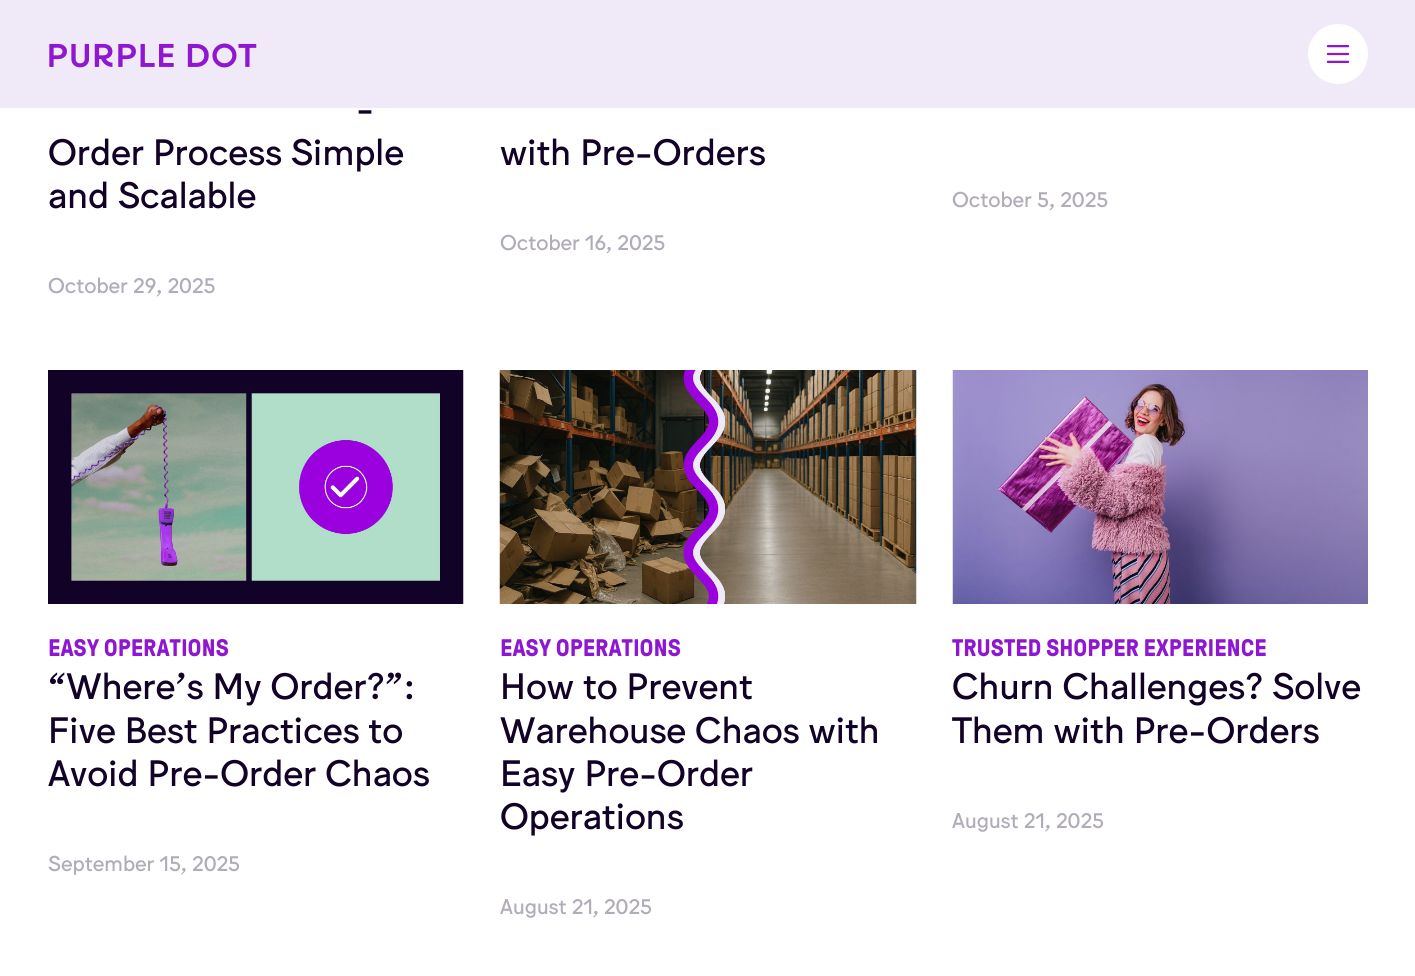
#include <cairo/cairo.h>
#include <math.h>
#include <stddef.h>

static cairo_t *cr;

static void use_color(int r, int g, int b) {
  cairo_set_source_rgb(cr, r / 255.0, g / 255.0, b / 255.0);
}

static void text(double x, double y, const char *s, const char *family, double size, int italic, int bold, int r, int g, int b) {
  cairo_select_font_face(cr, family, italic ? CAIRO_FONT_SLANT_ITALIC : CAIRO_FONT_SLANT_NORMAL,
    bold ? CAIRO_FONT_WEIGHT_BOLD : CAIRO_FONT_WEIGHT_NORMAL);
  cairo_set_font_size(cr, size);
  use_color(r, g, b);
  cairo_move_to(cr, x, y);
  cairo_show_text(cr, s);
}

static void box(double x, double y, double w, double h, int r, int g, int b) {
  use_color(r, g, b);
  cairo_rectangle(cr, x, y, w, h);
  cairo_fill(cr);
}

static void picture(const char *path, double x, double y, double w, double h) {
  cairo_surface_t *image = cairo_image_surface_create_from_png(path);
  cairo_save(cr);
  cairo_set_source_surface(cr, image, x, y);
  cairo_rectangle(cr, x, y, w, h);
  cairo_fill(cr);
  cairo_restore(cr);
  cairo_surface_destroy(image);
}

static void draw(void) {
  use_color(255, 255, 255);
  cairo_paint(cr);
  box(0, 0, 1415, 108, 240, 234, 248);
  picture("img_01.png", 49, 43, 208, 25);
  use_color(255, 255, 255);
  cairo_arc(cr, 1338, 54, 30, 0, 2 * M_PI);
  cairo_fill(cr);
  picture("img_02.png", 1326, 45, 24, 18);
  picture("img_03.png", 48, 370, 416, 234);
  picture("img_04.png", 499, 370, 418, 234);
  picture("img_05.png", 952, 370, 416, 234);
  text(356, 121, "-", "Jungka", 36, 0, 0, 19, 2, 40);
  text(48, 165, "Order Process Simple", "Jungka", 36, 0, 0, 19, 2, 40);
  text(48, 208, "and Scalable", "Jungka", 36, 0, 0, 19, 2, 40);
  text(48, 293, "October 29, 2025", "Jungka", 21, 0, 0, 177, 172, 184);
  text(500, 165, "with Pre-Orders", "Jungka", 36, 0, 0, 19, 2, 40);
  text(500, 250, "October 16, 2025", "Jungka", 21, 0, 0, 177, 172, 184);
  text(952, 207, "October 5, 2025", "Jungka", 21, 0, 0, 177, 172, 184);
  text(48, 656, "EASY OPERATIONS", "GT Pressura", 24, 0, 1, 143, 23, 209);
  text(48, 699, "“Where’s My Order?”:", "Jungka", 36, 0, 0, 19, 2, 40);
  text(48, 743, "Five Best Practices to", "Jungka", 36, 0, 0, 19, 2, 40);
  text(48, 786, "Avoid Pre-Order Chaos", "Jungka", 36, 0, 0, 19, 2, 40);
  text(48, 871, "September 15, 2025", "Jungka", 21, 0, 0, 177, 172, 184);
  text(500, 656, "EASY OPERATIONS", "GT Pressura", 24, 0, 1, 143, 23, 209);
  text(500, 699, "How to Prevent", "Jungka", 36, 0, 0, 19, 2, 40);
  text(500, 743, "Warehouse Chaos with", "Jungka", 36, 0, 0, 19, 2, 40);
  text(500, 786, "Easy Pre-Order", "Jungka", 36, 0, 0, 19, 2, 40);
  text(500, 829, "Operations", "Jungka", 36, 0, 0, 19, 2, 40);
  text(500, 914, "August 21, 2025", "Jungka", 21, 0, 0, 177, 172, 184);
  text(952, 656, "TRUSTED SHOPPER EXPERIENCE", "GT Pressura", 24, 0, 1, 143, 23, 209);
  text(952, 699, "Churn Challenges? Solve", "Jungka", 36, 0, 0, 19, 2, 40);
  text(952, 743, "Them with Pre-Orders", "Jungka", 36, 0, 0, 19, 2, 40);
  text(952, 828, "August 21, 2025", "Jungka", 21, 0, 0, 177, 172, 184);
}

int main(void) {
  cairo_surface_t *surface = cairo_image_surface_create(CAIRO_FORMAT_RGB24, 1415, 976);
  cr = cairo_create(surface);
  cairo_font_options_t *options = cairo_font_options_create();
  cairo_font_options_set_hint_metrics(options, CAIRO_HINT_METRICS_OFF);
  cairo_font_options_set_hint_style(options, CAIRO_HINT_STYLE_NONE);
  cairo_set_font_options(cr, options);
  cairo_set_miter_limit(cr, 4);
  draw();
  cairo_surface_write_to_png(surface, "out.png");
  cairo_font_options_destroy(options);
  cairo_destroy(cr);
  cairo_surface_destroy(surface);
  return 0;
}
